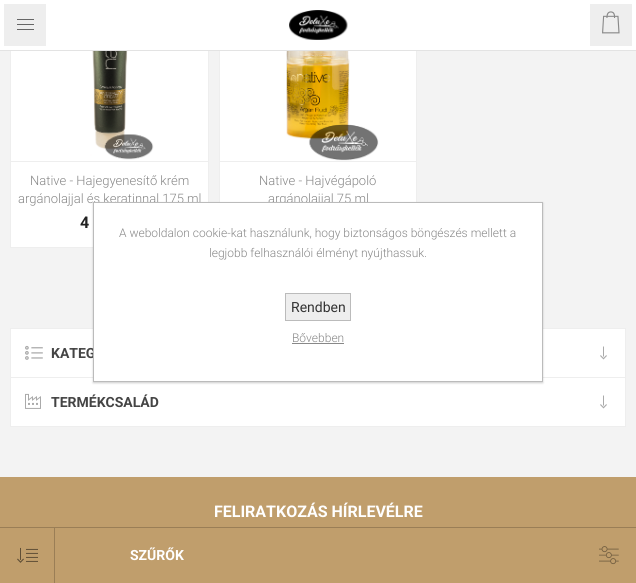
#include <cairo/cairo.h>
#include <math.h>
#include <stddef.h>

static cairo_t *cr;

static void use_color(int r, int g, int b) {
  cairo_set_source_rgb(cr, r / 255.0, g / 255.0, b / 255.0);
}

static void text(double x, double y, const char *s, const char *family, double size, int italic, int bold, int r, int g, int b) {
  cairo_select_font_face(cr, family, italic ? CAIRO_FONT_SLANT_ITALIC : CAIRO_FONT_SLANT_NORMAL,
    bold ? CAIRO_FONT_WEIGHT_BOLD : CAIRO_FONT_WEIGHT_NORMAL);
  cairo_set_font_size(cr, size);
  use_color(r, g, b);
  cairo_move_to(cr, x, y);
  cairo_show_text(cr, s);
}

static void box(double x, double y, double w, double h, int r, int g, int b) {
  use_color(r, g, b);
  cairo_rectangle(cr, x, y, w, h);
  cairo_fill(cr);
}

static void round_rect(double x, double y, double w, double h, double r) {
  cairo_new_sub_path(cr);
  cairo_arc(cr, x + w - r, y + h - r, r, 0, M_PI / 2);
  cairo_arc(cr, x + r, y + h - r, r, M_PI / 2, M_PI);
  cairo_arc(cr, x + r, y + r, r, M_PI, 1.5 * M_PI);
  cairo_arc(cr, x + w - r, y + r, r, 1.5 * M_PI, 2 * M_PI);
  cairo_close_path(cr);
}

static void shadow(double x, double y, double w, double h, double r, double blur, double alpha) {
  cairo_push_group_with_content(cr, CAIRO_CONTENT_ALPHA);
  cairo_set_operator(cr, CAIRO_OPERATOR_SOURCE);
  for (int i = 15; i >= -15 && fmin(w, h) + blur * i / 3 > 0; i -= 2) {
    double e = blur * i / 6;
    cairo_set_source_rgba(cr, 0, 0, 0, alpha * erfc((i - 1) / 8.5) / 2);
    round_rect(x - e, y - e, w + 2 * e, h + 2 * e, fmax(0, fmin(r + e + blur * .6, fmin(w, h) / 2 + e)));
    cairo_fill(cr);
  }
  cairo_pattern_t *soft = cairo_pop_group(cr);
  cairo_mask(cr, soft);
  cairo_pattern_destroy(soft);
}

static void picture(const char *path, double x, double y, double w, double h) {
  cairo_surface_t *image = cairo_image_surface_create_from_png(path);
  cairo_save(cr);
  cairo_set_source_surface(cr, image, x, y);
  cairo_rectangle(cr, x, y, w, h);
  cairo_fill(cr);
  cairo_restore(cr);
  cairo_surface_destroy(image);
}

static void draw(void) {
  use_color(243, 243, 243);
  cairo_paint(cr);
  box(11, 51, 197, 196, 255, 255, 255);
  cairo_rectangle(cr, 10.5, -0.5, 198, 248);
  use_color(238, 238, 238);
  cairo_set_line_width(cr, 1);
  cairo_stroke(cr);
  box(220, 51, 196, 151, 255, 255, 255);
  cairo_rectangle(cr, 219.5, -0.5, 197, 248);
  use_color(238, 238, 238);
  cairo_stroke(cr);
  box(50, 0, 536, 50, 255, 255, 255);
  picture("img_01.png", 289, 10, 59, 30);
  box(0, 50, 636, 1, 227, 227, 227);
  use_color(238, 238, 238);
  cairo_rectangle(cr, 2, 2, 46, 46);
  cairo_fill_preserve(cr);
  use_color(255, 255, 255);
  cairo_set_line_width(cr, 4);
  cairo_stroke(cr);
  box(17, 19, 17, 1, 102, 102, 102);
  box(17, 24, 17, 1, 102, 102, 102);
  box(17, 29, 17, 1, 102, 102, 102);
  use_color(238, 238, 238);
  cairo_rectangle(cr, 588, 2, 46, 46);
  cairo_fill_preserve(cr);
  use_color(255, 255, 255);
  cairo_stroke(cr);
  picture("img_02.png", 602, 11, 18, 23);
  box(11, 161, 197, 1, 238, 238, 238);
  picture("img_03.png", 88, 51, 66, 109);
  box(220, 161, 196, 1, 238, 238, 238);
  picture("img_04.png", 286, 51, 93, 110);
  box(11, 329, 614, 97, 255, 255, 255);
  box(10, 328, 616, 1, 238, 238, 238);
  box(625, 328, 1, 99, 238, 238, 238);
  box(10, 328, 1, 99, 238, 238, 238);
  box(11, 377, 614, 1, 238, 238, 238);
  picture("img_05.png", 25, 345, 18, 15);
  picture("img_06.png", 600, 346, 7, 14);
  box(11, 426, 614, 1, 238, 238, 238);
  picture("img_07.png", 25, 393, 16, 16);
  picture("img_06.png", 600, 395, 7, 14);
  box(0, 477, 636, 50, 192, 158, 108);
  box(0, 528, 636, 55, 192, 158, 108);
  box(0, 527, 636, 1, 154, 126, 86);
  picture("img_08.png", 17, 547, 21, 16);
  box(54, 528, 1, 55, 154, 126, 86);
  picture("img_09.png", 599, 546, 20, 19);
  use_color(0, 0, 0);
  shadow(93, 203, 450, 180, 0, 1, 0.2);
  text(30, 185, "Native - Hajegyenesítő krém", "Roboto Light", 13, 0, 0, 136, 136, 136);
  text(18, 203, "argánolajjal és keratinnal 175 ml", "Roboto Light", 13, 0, 0, 136, 136, 136);
  text(80, 228, "4", "Roboto", 16, 0, 1, 34, 34, 34);
  text(259, 185, "Native - Hajvégápoló", "Roboto Light", 13, 0, 0, 136, 136, 136);
  text(268, 203, "argánolajjal 75 ml", "Roboto Light", 13, 0, 0, 136, 136, 136);
  text(51, 358, "KATEG", "Roboto", 14, 0, 1, 68, 68, 68);
  text(51, 407, "TERMÉKCSALÁD", "Roboto", 14, 0, 1, 68, 68, 68);
  text(214, 517, "FELIRATKOZÁS HÍRLEVÉLRE", "Roboto", 16, 0, 1, 255, 255, 255);
  text(130, 560, "SZŰRŐK", "Roboto", 14, 0, 1, 255, 255, 255);
  cairo_rectangle(cr, 93.5, 202.5, 449, 179);
  cairo_fill_preserve(cr);
  use_color(187, 187, 187);
  cairo_set_line_width(cr, 1);
  cairo_stroke(cr);
  text(119, 237, "A weboldalon cookie-kat használunk, hogy biztonságos böngészés mellett a", "Roboto Light", 12, 0, 0, 136, 136, 136);
  text(209, 257, "legjobb felhasználói élményt nyújthassuk.", "Roboto Light", 12, 0, 0, 136, 136, 136);
  use_color(238, 238, 238);
  cairo_rectangle(cr, 285.5, 293.5, 65, 27);
  cairo_fill_preserve(cr);
  use_color(187, 187, 187);
  cairo_stroke(cr);
  text(291, 312, "Rendben", "Roboto", 14, 0, 0, 51, 51, 51);
  text(292, 342, "Bővebben", "Roboto Light", 12, 0, 0, 136, 136, 136);
  box(292, 343, 52, 1, 136, 136, 136);
}

int main(void) {
  cairo_surface_t *surface = cairo_image_surface_create(CAIRO_FORMAT_RGB24, 636, 583);
  cr = cairo_create(surface);
  cairo_font_options_t *options = cairo_font_options_create();
  cairo_font_options_set_hint_metrics(options, CAIRO_HINT_METRICS_OFF);
  cairo_font_options_set_hint_style(options, CAIRO_HINT_STYLE_NONE);
  cairo_set_font_options(cr, options);
  cairo_set_miter_limit(cr, 4);
  draw();
  cairo_surface_write_to_png(surface, "out.png");
  cairo_font_options_destroy(options);
  cairo_destroy(cr);
  cairo_surface_destroy(surface);
  return 0;
}
